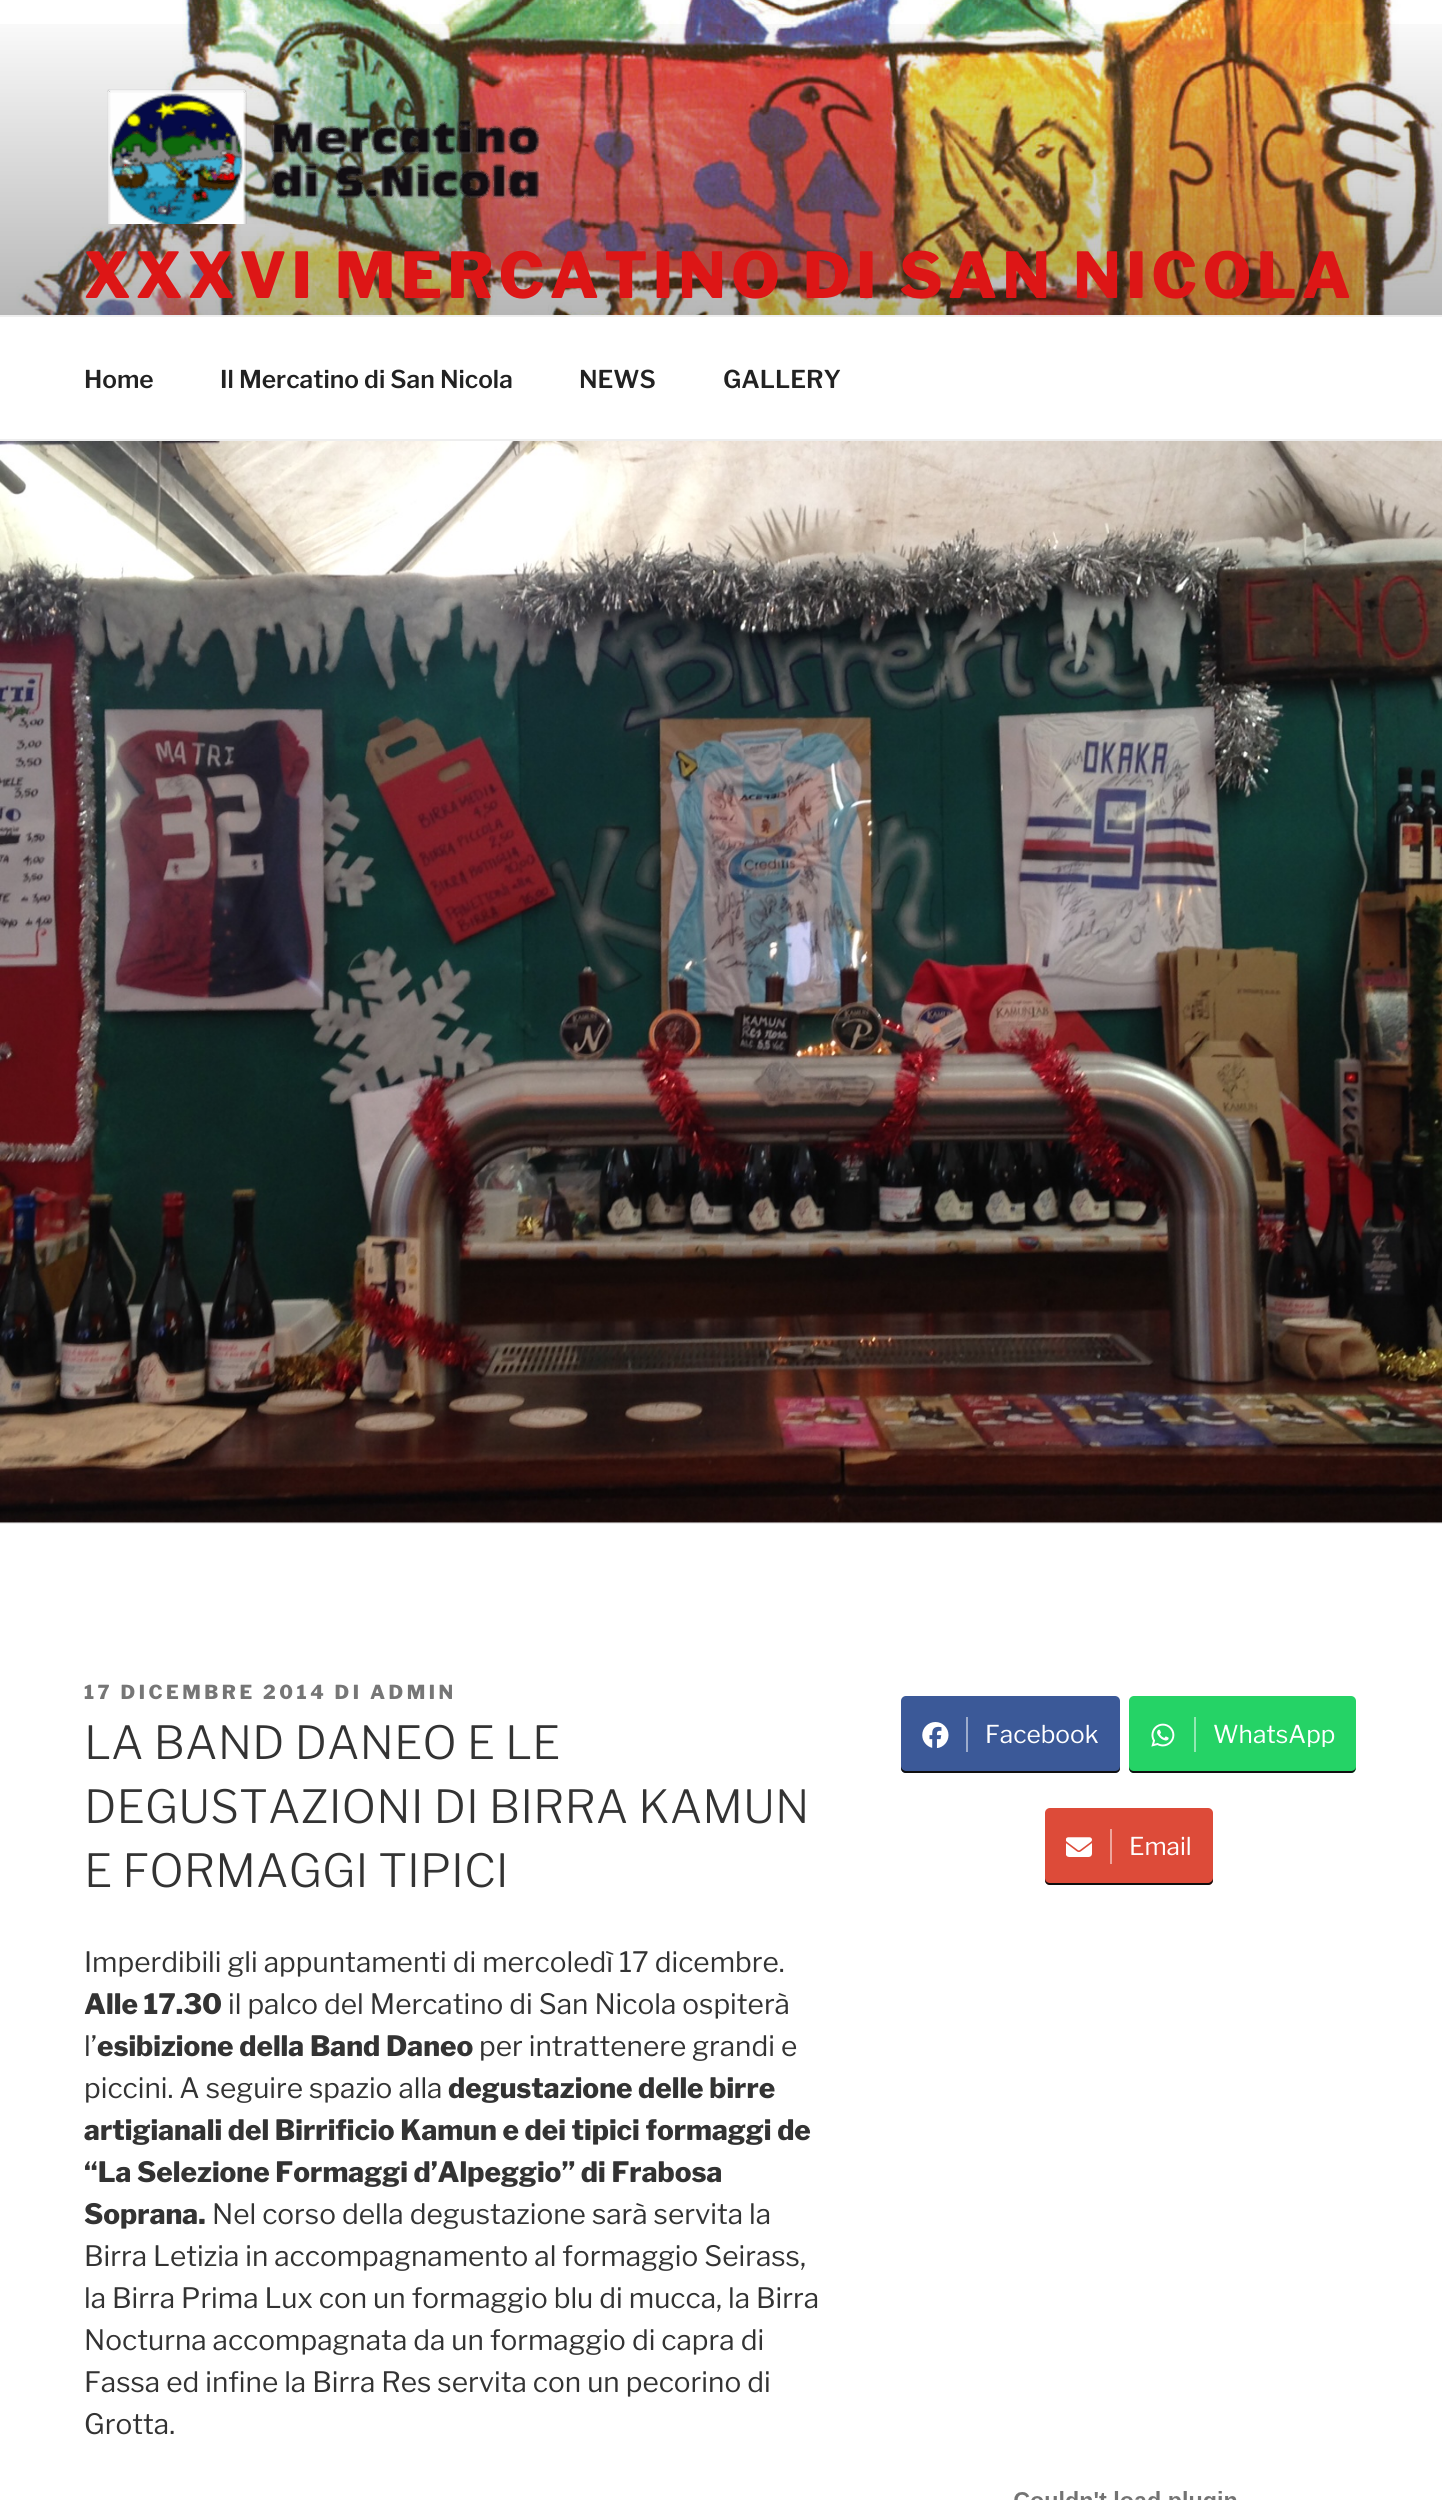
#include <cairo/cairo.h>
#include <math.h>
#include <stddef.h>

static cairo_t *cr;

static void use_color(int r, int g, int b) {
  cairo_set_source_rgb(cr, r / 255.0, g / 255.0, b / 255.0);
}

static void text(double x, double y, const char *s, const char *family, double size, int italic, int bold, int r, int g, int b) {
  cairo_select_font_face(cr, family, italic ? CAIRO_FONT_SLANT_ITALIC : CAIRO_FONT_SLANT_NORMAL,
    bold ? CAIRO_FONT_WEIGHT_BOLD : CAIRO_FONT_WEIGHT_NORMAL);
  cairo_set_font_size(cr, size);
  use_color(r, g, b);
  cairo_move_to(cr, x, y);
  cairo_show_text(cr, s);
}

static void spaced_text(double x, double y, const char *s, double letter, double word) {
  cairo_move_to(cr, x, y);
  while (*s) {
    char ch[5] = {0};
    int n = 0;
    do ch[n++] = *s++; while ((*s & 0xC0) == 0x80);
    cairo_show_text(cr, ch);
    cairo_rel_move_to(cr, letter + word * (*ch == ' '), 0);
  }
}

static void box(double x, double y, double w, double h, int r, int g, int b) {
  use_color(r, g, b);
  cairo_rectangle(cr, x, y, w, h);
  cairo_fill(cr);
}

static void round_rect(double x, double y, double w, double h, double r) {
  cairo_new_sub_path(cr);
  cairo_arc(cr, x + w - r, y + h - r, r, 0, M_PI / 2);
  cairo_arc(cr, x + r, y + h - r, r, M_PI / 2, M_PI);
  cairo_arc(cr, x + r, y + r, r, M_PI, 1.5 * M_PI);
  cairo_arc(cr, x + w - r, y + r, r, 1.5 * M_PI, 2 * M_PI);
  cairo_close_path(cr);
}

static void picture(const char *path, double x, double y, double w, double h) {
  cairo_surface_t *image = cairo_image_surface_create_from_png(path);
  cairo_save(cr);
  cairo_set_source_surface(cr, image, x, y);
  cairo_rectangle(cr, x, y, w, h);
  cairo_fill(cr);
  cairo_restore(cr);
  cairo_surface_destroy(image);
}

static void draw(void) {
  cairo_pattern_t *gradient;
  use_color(250, 250, 250);
  cairo_paint(cr);
  picture("img_01.png", 0, 0, 1442, 315);
  gradient = cairo_pattern_create_linear(721, 0, 721, 441);
  cairo_pattern_add_color_stop_rgba(gradient, 0, 0, 0, 0, 0);
  cairo_pattern_add_color_stop_rgba(gradient, 0.75, 0, 0, 0, 0.3);
  cairo_pattern_add_color_stop_rgba(gradient, 1, 0, 0, 0, 0.3);
  cairo_set_source(cr, gradient);
  cairo_pattern_destroy(gradient);
  cairo_rectangle(cr, 0, 24, 1442, 291);
  cairo_fill(cr);
  picture("img_02.png", 107, 89, 434, 135);
  box(0, 317, 1442, 122, 255, 255, 255);
  box(0, 315, 1442, 2, 238, 238, 238);
  box(0, 439, 1442, 2, 238, 238, 238);
  box(0, 1523, 1442, 1, 238, 238, 238);
  picture("img_03.png", 0, 441, 1442, 1082);
  box(0, 1524, 1442, 976, 255, 255, 255);
  use_color(59, 89, 152);
  round_rect(901, 1696, 219, 77, 5);
  cairo_fill(cr);
  use_color(15, 15, 15);
  cairo_new_path(cr);
  cairo_move_to(cr, 901, 1766);
  cairo_line_to(cr, 901, 1768);
  cairo_curve_to(cr, 901, 1771, 903, 1773, 906, 1773);
  cairo_line_to(cr, 1115, 1773);
  cairo_curve_to(cr, 1118, 1773, 1120, 1771, 1120, 1768);
  cairo_line_to(cr, 1120, 1766);
  cairo_curve_to(cr, 1120, 1769, 1118, 1771, 1115, 1771);
  cairo_line_to(cr, 906, 1771);
  cairo_curve_to(cr, 904, 1771, 901, 1769, 901, 1766);
  cairo_close_path(cr);
  cairo_fill(cr);
  picture("img_04.png", 922, 1722, 27, 26);
  box(966, 1717, 2, 35, 157, 172, 204);
  use_color(37, 211, 102);
  round_rect(1129, 1696, 227, 77, 5);
  cairo_fill(cr);
  use_color(15, 15, 15);
  cairo_new_path(cr);
  cairo_move_to(cr, 1129, 1766);
  cairo_curve_to(cr, 1129, 1769, 1129, 1772, 1133, 1773);
  cairo_line_to(cr, 1351, 1773);
  cairo_curve_to(cr, 1355, 1773, 1356, 1769, 1356, 1766);
  cairo_curve_to(cr, 1356, 1769, 1354, 1771, 1351, 1771);
  cairo_line_to(cr, 1134, 1771);
  cairo_curve_to(cr, 1131, 1771, 1129, 1769, 1129, 1766);
  cairo_close_path(cr);
  cairo_fill(cr);
  picture("img_05.png", 1151, 1723, 24, 24);
  box(1194, 1717, 2, 35, 146, 233, 179);
  use_color(221, 75, 57);
  round_rect(1045, 1808, 168, 77, 5);
  cairo_fill(cr);
  use_color(15, 15, 15);
  cairo_new_path(cr);
  cairo_move_to(cr, 1045, 1878);
  cairo_line_to(cr, 1045, 1880);
  cairo_curve_to(cr, 1045, 1883, 1047, 1885, 1050, 1885);
  cairo_line_to(cr, 1208, 1885);
  cairo_curve_to(cr, 1211, 1885, 1213, 1883, 1213, 1880);
  cairo_line_to(cr, 1213, 1878);
  cairo_curve_to(cr, 1213, 1881, 1210, 1883, 1208, 1883);
  cairo_line_to(cr, 1050, 1883);
  cairo_curve_to(cr, 1047, 1883, 1045, 1881, 1045, 1878);
  cairo_close_path(cr);
  cairo_fill(cr);
  picture("img_06.png", 1066, 1837, 26, 20);
  box(1110, 1829, 2, 35, 238, 165, 156);
  picture("img_07.png", 1014, 2491, 223, 9);
  cairo_select_font_face(cr, "Libre Franklin Thin", CAIRO_FONT_SLANT_NORMAL, CAIRO_FONT_WEIGHT_NORMAL);
  cairo_set_font_size(cr, 63);
  use_color(221, 22, 22);
  spaced_text(84, 298, "XXXVI MERCATINO DI SAN NICOLA", 5.05, 0);
  text(84, 388, "Home", "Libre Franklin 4 Thin", 24.5, 0, 0, 34, 34, 34);
  text(220, 388, "Il Mercatino di San Nicola", "Libre Franklin 4 Thin", 24.5, 0, 0, 34, 34, 34);
  text(579, 388, "NEWS", "Libre Franklin 4 Thin", 24.5, 0, 0, 34, 34, 34);
  text(723, 388, "GALLERY", "Libre Franklin 4 Thin", 24.5, 0, 0, 34, 34, 34);
  cairo_select_font_face(cr, "Libre Franklin Thin", CAIRO_FONT_SLANT_NORMAL, CAIRO_FONT_WEIGHT_NORMAL);
  cairo_set_font_size(cr, 19.25);
  use_color(118, 118, 118);
  spaced_text(84, 1699, "17 DICEMBRE 2014 DI ADMIN", 3.5, 0);
  text(84, 1759, "LA BAND DANEO E LE", "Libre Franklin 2 Thin", 45.5, 0, 0, 51, 51, 51);
  text(84, 1823, "DEGUSTAZIONI DI BIRRA KAMUN", "Libre Franklin 2 Thin", 45.5, 0, 0, 51, 51, 51);
  text(84, 1887, "E FORMAGGI TIPICI", "Libre Franklin 2 Thin", 45.5, 0, 0, 51, 51, 51);
  text(84, 1972, "Imperdibili gli appuntamenti di mercoledì 17 dicembre.", "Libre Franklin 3 Thin", 28, 0, 0, 51, 51, 51);
  text(84, 2014, "Alle 17.30", "Libre Franklin Thin", 28, 0, 0, 51, 51, 51);
  text(228, 2014, "il palco del Mercatino di San Nicola ospiterà", "Libre Franklin 3 Thin", 28, 0, 0, 51, 51, 51);
  text(84, 2056, "l’", "Libre Franklin 3 Thin", 28, 0, 0, 51, 51, 51);
  text(97, 2056, "esibizione della Band Daneo", "Libre Franklin Thin", 28, 0, 0, 51, 51, 51);
  text(479, 2056, "per intrattenere grandi e", "Libre Franklin 3 Thin", 28, 0, 0, 51, 51, 51);
  text(84, 2098, "piccini. A seguire spazio alla", "Libre Franklin 3 Thin", 28, 0, 0, 51, 51, 51);
  text(448, 2098, "degustazione delle birre", "Libre Franklin Thin", 28, 0, 0, 51, 51, 51);
  text(84, 2140, "artigianali del Birrificio Kamun e dei tipici formaggi de", "Libre Franklin Thin", 28, 0, 0, 51, 51, 51);
  text(84, 2182, "“La Selezione Formaggi d’Alpeggio” di Frabosa", "Libre Franklin Thin", 28, 0, 0, 51, 51, 51);
  text(84, 2224, "Soprana.", "Libre Franklin Thin", 28, 0, 0, 51, 51, 51);
  text(212, 2224, "Nel corso della degustazione sarà servita la", "Libre Franklin 3 Thin", 28, 0, 0, 51, 51, 51);
  text(84, 2266, "Birra Letizia in accompagnamento al formaggio Seirass,", "Libre Franklin 3 Thin", 28, 0, 0, 51, 51, 51);
  text(84, 2308, "la Birra Prima Lux con un formaggio blu di mucca, la Birra", "Libre Franklin 3 Thin", 28, 0, 0, 51, 51, 51);
  text(84, 2350, "Nocturna accompagnata da un formaggio di capra di", "Libre Franklin 3 Thin", 28, 0, 0, 51, 51, 51);
  text(84, 2392, "Fassa ed infine la Birra Res servita con un pecorino di", "Libre Franklin 3 Thin", 28, 0, 0, 51, 51, 51);
  text(84, 2434, "Grotta.", "Libre Franklin 3 Thin", 28, 0, 0, 51, 51, 51);
  text(985, 1743, "Facebook", "Libre Franklin 3 Thin", 24.5, 0, 0, 255, 255, 255);
  text(1213, 1743, "WhatsApp", "Libre Franklin 3 Thin", 24.5, 0, 0, 255, 255, 255);
  text(1129, 1855, "Email", "Libre Franklin 3 Thin", 24.5, 0, 0, 255, 255, 255);
}

int main(void) {
  cairo_surface_t *surface = cairo_image_surface_create(CAIRO_FORMAT_RGB24, 1442, 2500);
  cr = cairo_create(surface);
  cairo_font_options_t *options = cairo_font_options_create();
  cairo_font_options_set_hint_metrics(options, CAIRO_HINT_METRICS_OFF);
  cairo_font_options_set_hint_style(options, CAIRO_HINT_STYLE_NONE);
  cairo_set_font_options(cr, options);
  cairo_set_miter_limit(cr, 4);
  draw();
  cairo_surface_write_to_png(surface, "out.png");
  cairo_font_options_destroy(options);
  cairo_destroy(cr);
  cairo_surface_destroy(surface);
  return 0;
}
